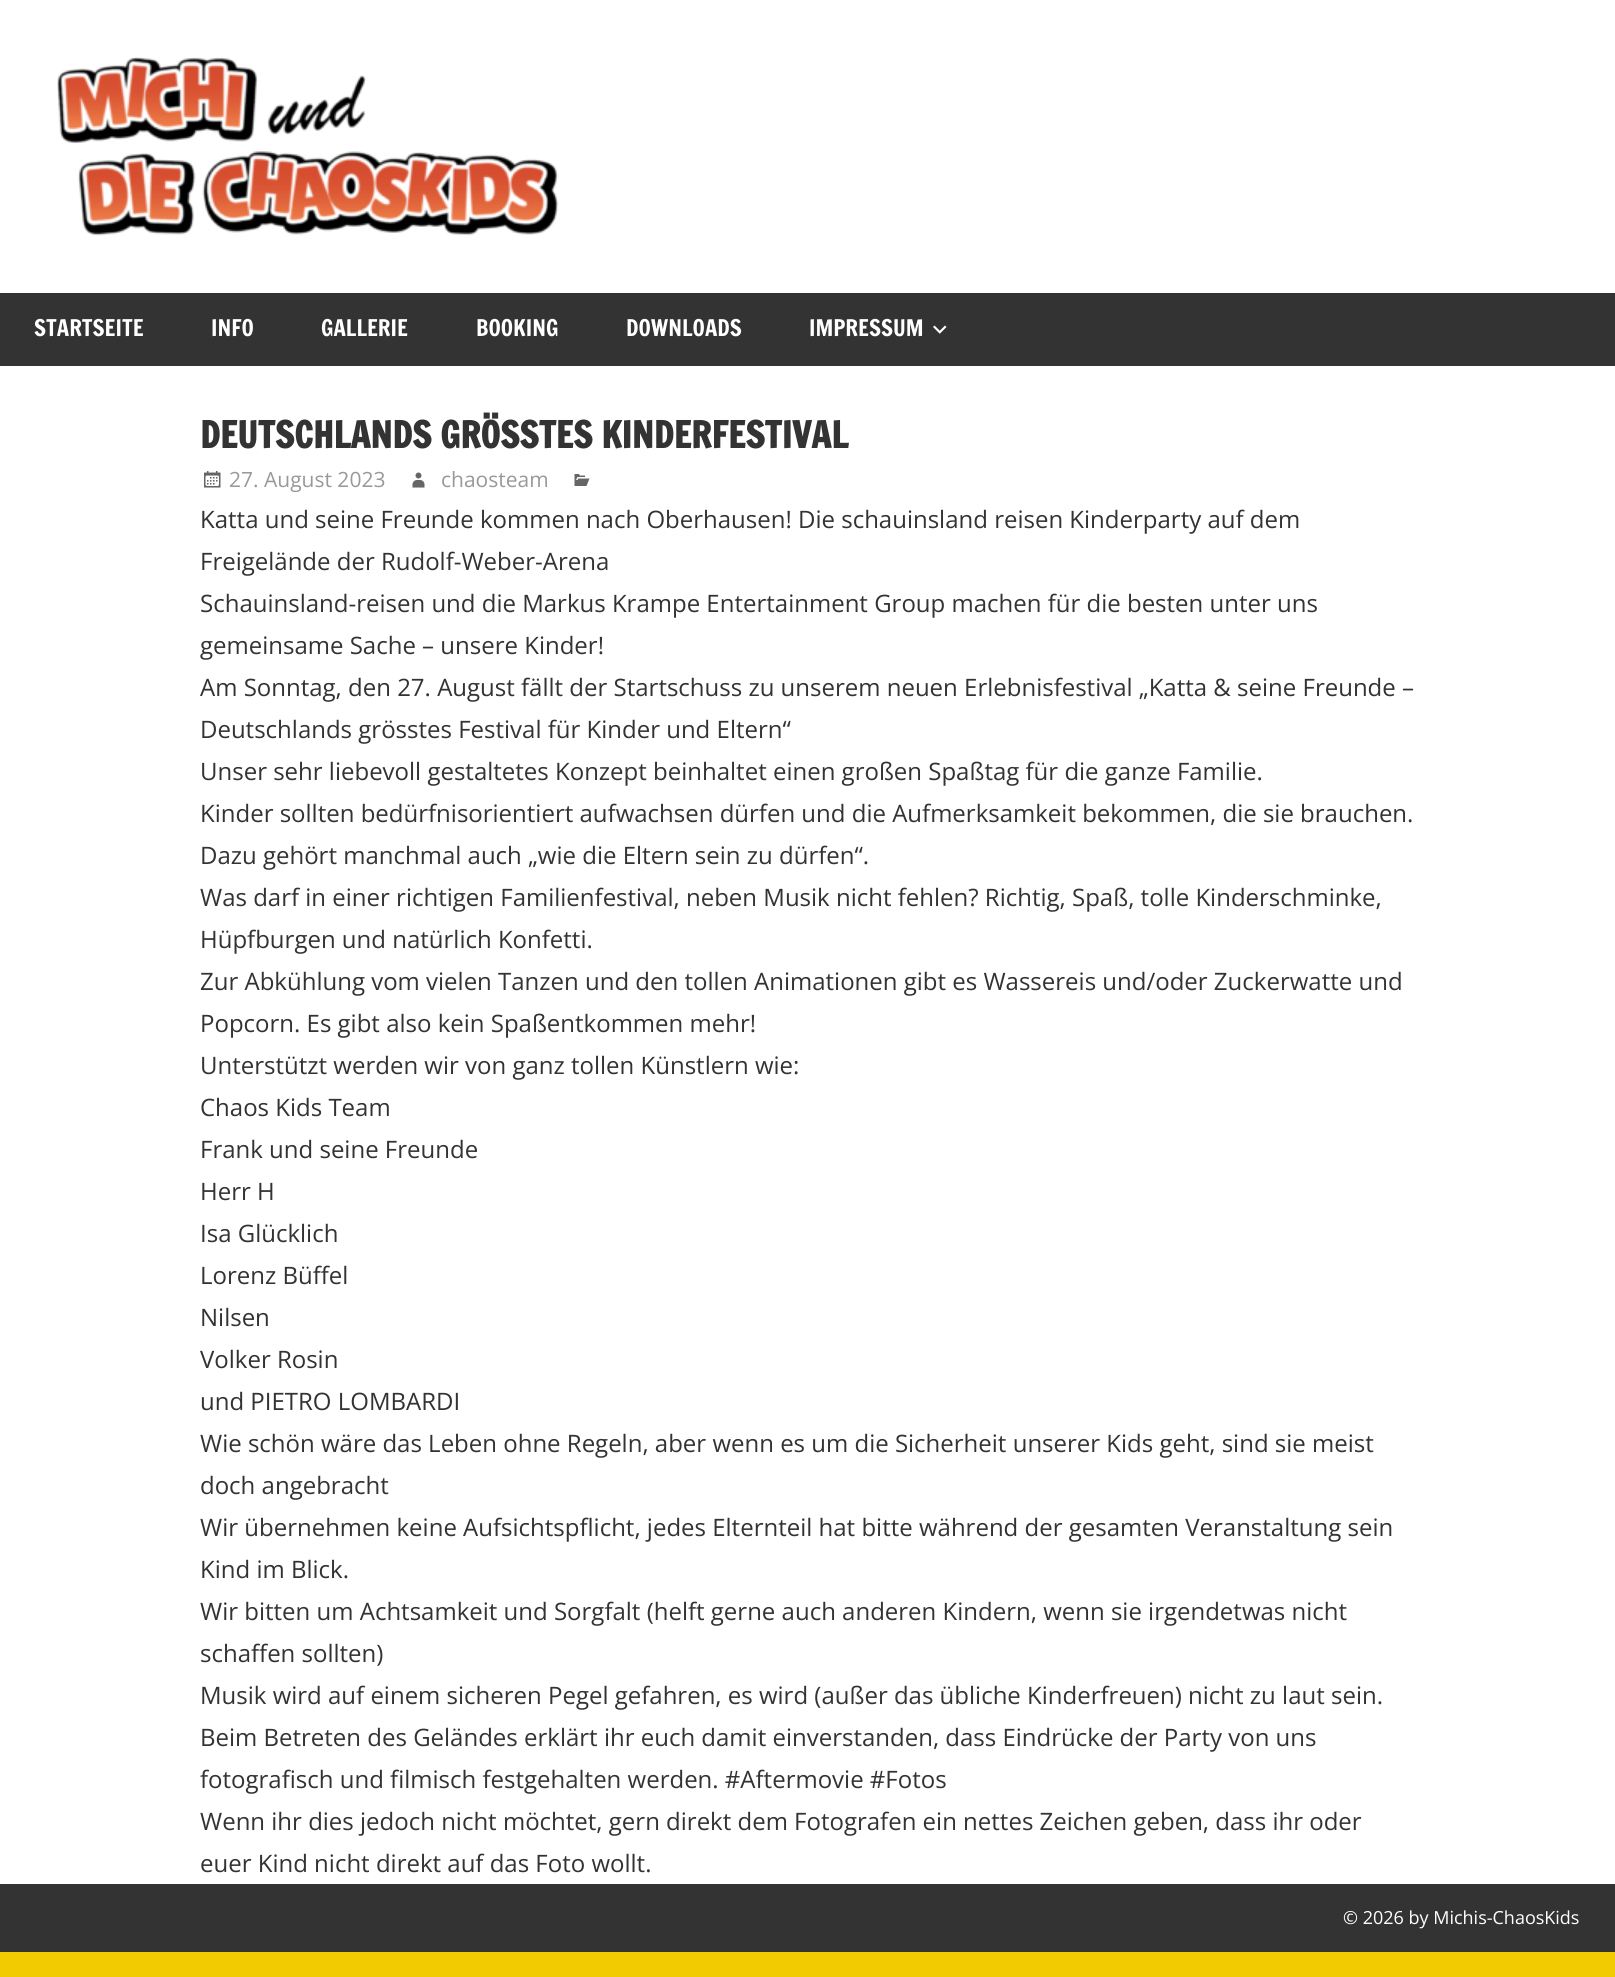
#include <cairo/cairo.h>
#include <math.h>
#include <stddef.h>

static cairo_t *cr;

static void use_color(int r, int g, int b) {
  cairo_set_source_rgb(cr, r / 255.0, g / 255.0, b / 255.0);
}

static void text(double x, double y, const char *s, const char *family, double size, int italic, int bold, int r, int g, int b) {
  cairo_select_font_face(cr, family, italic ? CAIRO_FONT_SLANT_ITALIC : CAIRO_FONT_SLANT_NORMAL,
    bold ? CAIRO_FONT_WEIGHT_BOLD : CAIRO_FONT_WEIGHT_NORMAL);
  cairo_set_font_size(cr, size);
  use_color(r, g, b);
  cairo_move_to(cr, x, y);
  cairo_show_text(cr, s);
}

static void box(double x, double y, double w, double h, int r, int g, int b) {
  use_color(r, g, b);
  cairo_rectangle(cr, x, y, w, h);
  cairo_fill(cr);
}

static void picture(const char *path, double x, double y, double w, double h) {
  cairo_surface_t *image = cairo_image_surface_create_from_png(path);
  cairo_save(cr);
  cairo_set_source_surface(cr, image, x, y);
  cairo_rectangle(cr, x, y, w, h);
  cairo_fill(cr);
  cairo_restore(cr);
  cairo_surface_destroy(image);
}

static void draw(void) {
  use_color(242, 204, 0);
  cairo_paint(cr);
  box(0, 0, 1615, 1884, 255, 255, 255);
  picture("img_01.png", 57, 57, 502, 179);
  box(0, 293, 1615, 73, 51, 51, 51);
  picture("img_02.png", 933, 325, 14, 9);
  picture("img_03.png", 204, 471, 17, 17);
  picture("img_04.png", 412, 472, 13, 16);
  picture("img_05.png", 574, 474, 16, 12);
  box(0, 1884, 1615, 68, 51, 51, 51);
  text(34, 336, "STARTSEITE", "Francois One", 22.5, 0, 0, 255, 255, 255);
  text(211, 336, "INFO", "Francois One", 22.5, 0, 0, 255, 255, 255);
  text(321, 336, "GALLERIE", "Francois One", 22.5, 0, 0, 255, 255, 255);
  text(476, 336, "BOOKING", "Francois One", 22.5, 0, 0, 255, 255, 255);
  text(626, 336, "DOWNLOADS", "Francois One", 22.5, 0, 0, 255, 255, 255);
  text(809, 336, "IMPRESSUM", "Francois One", 22.5, 0, 0, 255, 255, 255);
  text(200, 448, "DEUTSCHLANDS GRÖSSTES KINDERFESTIVAL", "Francois One", 36, 0, 1, 51, 51, 51);
  text(229, 487, "27. August 2023", "Open Sans", 21, 0, 0, 153, 153, 153);
  text(441, 487, "chaosteam", "Open Sans", 21, 0, 0, 153, 153, 153);
  text(200, 528, "Katta und seine Freunde kommen nach Oberhausen! Die schauinsland reisen Kinderparty auf dem", "Open Sans", 24, 0, 0, 51, 51, 51);
  text(200, 570, "Freigelände der Rudolf-Weber-Arena", "Open Sans", 24, 0, 0, 51, 51, 51);
  text(200, 612, "Schauinsland-reisen und die Markus Krampe Entertainment Group machen für die besten unter uns", "Open Sans", 24, 0, 0, 51, 51, 51);
  text(200, 654, "gemeinsame Sache – unsere Kinder!", "Open Sans", 24, 0, 0, 51, 51, 51);
  text(200, 696, "Am Sonntag, den 27. August fällt der Startschuss zu unserem neuen Erlebnisfestival „Katta & seine Freunde –", "Open Sans", 24, 0, 0, 51, 51, 51);
  text(200, 738, "Deutschlands grösstes Festival für Kinder und Eltern“", "Open Sans", 24, 0, 0, 51, 51, 51);
  text(200, 780, "Unser sehr liebevoll gestaltetes Konzept beinhaltet einen großen Spaßtag für die ganze Familie.", "Open Sans", 24, 0, 0, 51, 51, 51);
  text(200, 822, "Kinder sollten bedürfnisorientiert aufwachsen dürfen und die Aufmerksamkeit bekommen, die sie brauchen.", "Open Sans", 24, 0, 0, 51, 51, 51);
  text(200, 864, "Dazu gehört manchmal auch „wie die Eltern sein zu dürfen“.", "Open Sans", 24, 0, 0, 51, 51, 51);
  text(200, 906, "Was darf in einer richtigen Familienfestival, neben Musik nicht fehlen? Richtig, Spaß, tolle Kinderschminke,", "Open Sans", 24, 0, 0, 51, 51, 51);
  text(200, 948, "Hüpfburgen und natürlich Konfetti.", "Open Sans", 24, 0, 0, 51, 51, 51);
  text(200, 990, "Zur Abkühlung vom vielen Tanzen und den tollen Animationen gibt es Wassereis und/oder Zuckerwatte und", "Open Sans", 24, 0, 0, 51, 51, 51);
  text(200, 1032, "Popcorn. Es gibt also kein Spaßentkommen mehr!", "Open Sans", 24, 0, 0, 51, 51, 51);
  text(200, 1074, "Unterstützt werden wir von ganz tollen Künstlern wie:", "Open Sans", 24, 0, 0, 51, 51, 51);
  text(200, 1116, "Chaos Kids Team", "Open Sans", 24, 0, 0, 51, 51, 51);
  text(200, 1158, "Frank und seine Freunde", "Open Sans", 24, 0, 0, 51, 51, 51);
  text(200, 1200, "Herr H", "Open Sans", 24, 0, 0, 51, 51, 51);
  text(200, 1242, "Isa Glücklich", "Open Sans", 24, 0, 0, 51, 51, 51);
  text(200, 1284, "Lorenz Büffel", "Open Sans", 24, 0, 0, 51, 51, 51);
  text(200, 1326, "Nilsen", "Open Sans", 24, 0, 0, 51, 51, 51);
  text(200, 1368, "Volker Rosin", "Open Sans", 24, 0, 0, 51, 51, 51);
  text(200, 1410, "und PIETRO LOMBARDI", "Open Sans", 24, 0, 0, 51, 51, 51);
  text(200, 1452, "Wie schön wäre das Leben ohne Regeln, aber wenn es um die Sicherheit unserer Kids geht, sind sie meist", "Open Sans", 24, 0, 0, 51, 51, 51);
  text(200, 1494, "doch angebracht", "Open Sans", 24, 0, 0, 51, 51, 51);
  text(200, 1536, "Wir übernehmen keine Aufsichtspflicht, jedes Elternteil hat bitte während der gesamten Veranstaltung sein", "Open Sans", 24, 0, 0, 51, 51, 51);
  text(200, 1578, "Kind im Blick.", "Open Sans", 24, 0, 0, 51, 51, 51);
  text(200, 1620, "Wir bitten um Achtsamkeit und Sorgfalt (helft gerne auch anderen Kindern, wenn sie irgendetwas nicht", "Open Sans", 24, 0, 0, 51, 51, 51);
  text(200, 1662, "schaffen sollten)", "Open Sans", 24, 0, 0, 51, 51, 51);
  text(200, 1704, "Musik wird auf einem sicheren Pegel gefahren, es wird (außer das übliche Kinderfreuen) nicht zu laut sein.", "Open Sans", 24, 0, 0, 51, 51, 51);
  text(200, 1746, "Beim Betreten des Geländes erklärt ihr euch damit einverstanden, dass Eindrücke der Party von uns", "Open Sans", 24, 0, 0, 51, 51, 51);
  text(200, 1788, "fotografisch und filmisch festgehalten werden. #Aftermovie #Fotos", "Open Sans", 24, 0, 0, 51, 51, 51);
  text(200, 1830, "Wenn ihr dies jedoch nicht möchtet, gern direkt dem Fotografen ein nettes Zeichen geben, dass ihr oder", "Open Sans", 24, 0, 0, 51, 51, 51);
  text(200, 1872, "euer Kind nicht direkt auf das Foto wollt.", "Open Sans", 24, 0, 0, 51, 51, 51);
  text(1343, 1924, "© 2026 by Michis-ChaosKids", "Open Sans", 18, 0, 0, 255, 255, 255);
}

int main(void) {
  cairo_surface_t *surface = cairo_image_surface_create(CAIRO_FORMAT_RGB24, 1615, 1977);
  cr = cairo_create(surface);
  cairo_font_options_t *options = cairo_font_options_create();
  cairo_font_options_set_hint_metrics(options, CAIRO_HINT_METRICS_OFF);
  cairo_font_options_set_hint_style(options, CAIRO_HINT_STYLE_NONE);
  cairo_set_font_options(cr, options);
  cairo_set_miter_limit(cr, 4);
  draw();
  cairo_surface_write_to_png(surface, "out.png");
  cairo_font_options_destroy(options);
  cairo_destroy(cr);
  cairo_surface_destroy(surface);
  return 0;
}
